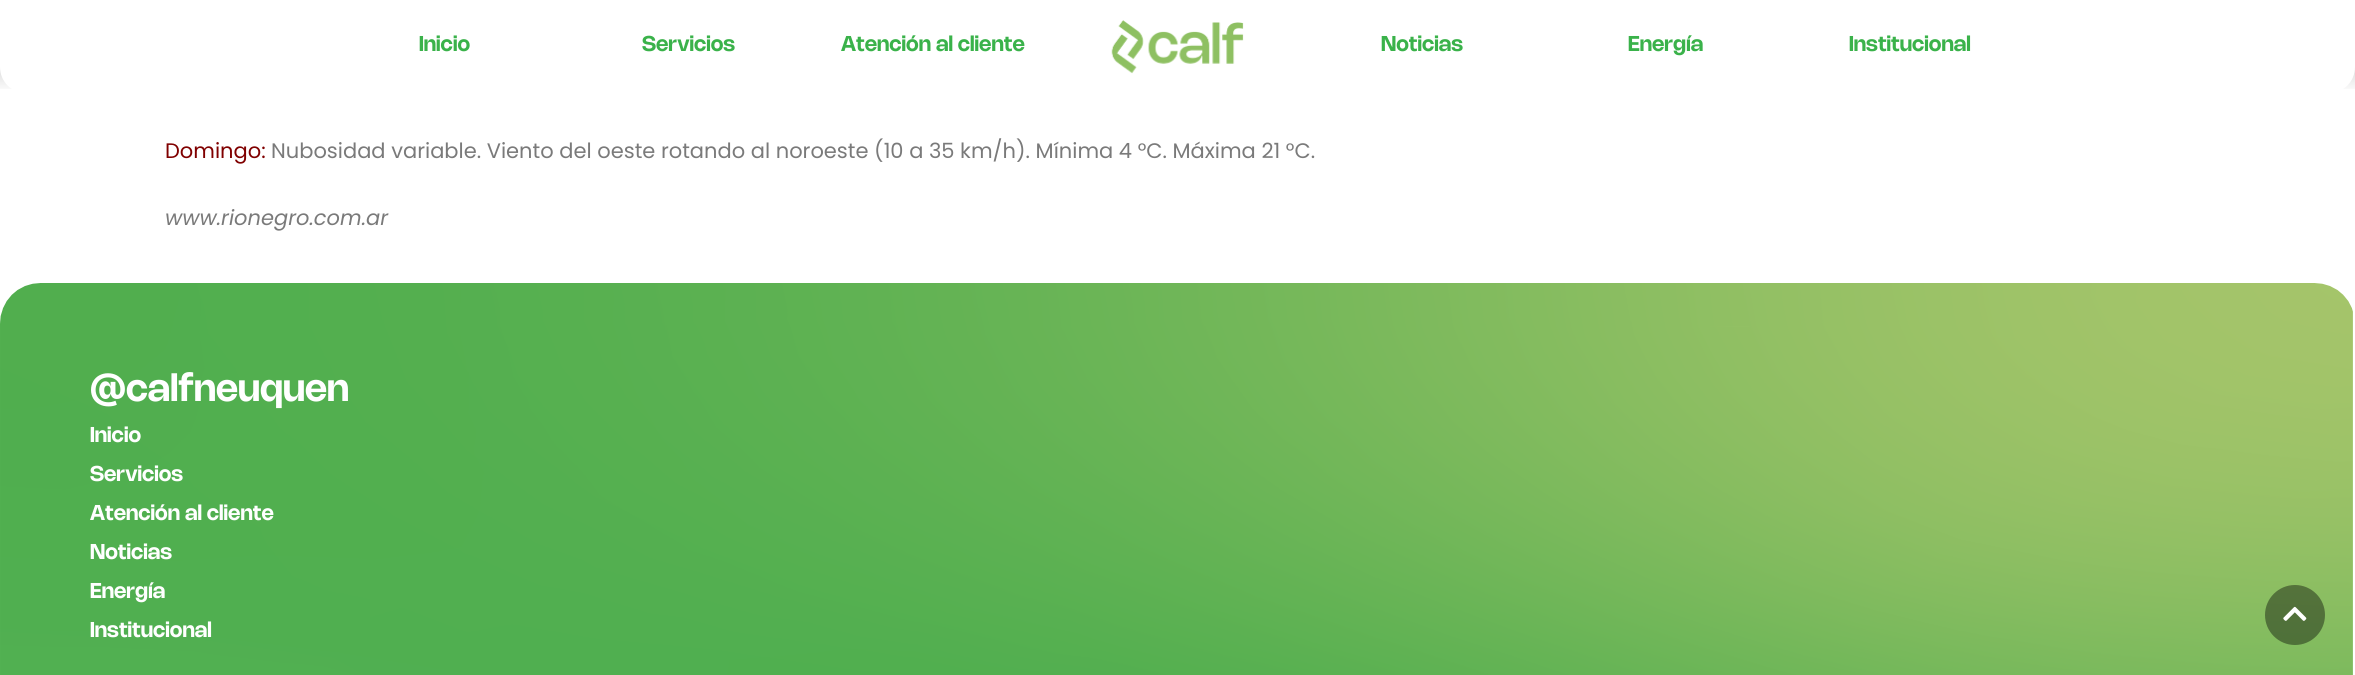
#include <cairo/cairo.h>
#include <math.h>
#include <stddef.h>

static cairo_t *cr;

static void use_color(int r, int g, int b) {
  cairo_set_source_rgb(cr, r / 255.0, g / 255.0, b / 255.0);
}

static void text(double x, double y, const char *s, const char *family, double size, int italic, int bold, int r, int g, int b) {
  cairo_select_font_face(cr, family, italic ? CAIRO_FONT_SLANT_ITALIC : CAIRO_FONT_SLANT_NORMAL,
    bold ? CAIRO_FONT_WEIGHT_BOLD : CAIRO_FONT_WEIGHT_NORMAL);
  cairo_set_font_size(cr, size);
  use_color(r, g, b);
  cairo_move_to(cr, x, y);
  cairo_show_text(cr, s);
}

static void picture(const char *path, double x, double y, double w, double h) {
  cairo_surface_t *image = cairo_image_surface_create_from_png(path);
  cairo_save(cr);
  cairo_set_source_surface(cr, image, x, y);
  cairo_rectangle(cr, x, y, w, h);
  cairo_fill(cr);
  cairo_restore(cr);
  cairo_surface_destroy(image);
}

static void draw(void) {
  cairo_pattern_t *gradient;
  use_color(255, 255, 255);
  cairo_paint(cr);
  gradient = cairo_pattern_create_linear(1178, 0, 1178, 93);
  cairo_pattern_add_color_stop_rgba(gradient, 0, 0, 0, 0, 0.5);
  cairo_pattern_add_color_stop_rgba(gradient, 1, 0, 0, 0, 0);
  cairo_set_source(cr, gradient);
  cairo_pattern_destroy(gradient);
  cairo_rectangle(cr, 0, 67, 2355, 22);
  cairo_fill(cr);
  use_color(255, 255, 255);
  cairo_new_path(cr);
  cairo_move_to(cr, 0, 0);
  cairo_line_to(cr, 2355, 0);
  cairo_line_to(cr, 2355, 67);
  cairo_curve_to(cr, 2355, 81.5, 2343.5, 93, 2329, 93);
  cairo_line_to(cr, 26, 93);
  cairo_curve_to(cr, 11.5, 93, 0, 81.5, 0, 67);
  cairo_close_path(cr);
  cairo_fill(cr);
  picture("img_01.png", 1111, 20, 133, 54);
  picture("img_02.png", 0, 283, 2353, 392);
  cairo_set_source_rgba(cr, 0, 0, 0, 0.4);
  cairo_arc(cr, 2295, 615, 30, 0, 2 * M_PI);
  cairo_fill(cr);
  picture("img_03.png", 2283, 606, 24, 15);
  text(419, 51, "Inicio", "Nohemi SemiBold", 21, 0, 0, 58, 178, 74);
  text(642, 51, "Servicios", "Nohemi SemiBold", 21, 0, 0, 58, 178, 74);
  text(841, 51, "Atención al cliente", "Nohemi SemiBold", 21, 0, 0, 58, 178, 74);
  text(1381, 51, "Noticias", "Nohemi SemiBold", 21, 0, 0, 58, 178, 74);
  text(1628, 51, "Energía", "Nohemi SemiBold", 21, 0, 0, 58, 178, 74);
  text(1849, 51, "Institucional", "Nohemi SemiBold", 21, 0, 0, 58, 178, 74);
  text(165, 158, "Domingo:", "Poppins", 21, 0, 0, 128, 0, 0);
  text(271, 158, "Nubosidad variable. Viento del oeste rotando al noroeste (10 a 35 km/h). Mínima 4 °C. Máxima 21 °C.", "Poppins", 21, 0, 0, 122, 122, 122);
  text(165, 225, "www.rionegro.com.ar", "Poppins", 21, 1, 0, 122, 122, 122);
  text(90, 401, "@calfneuquen", "Nohemi SemiBold", 37.5, 0, 0, 255, 255, 255);
  text(90, 442, "Inicio", "Nohemi SemiBold", 21, 0, 0, 255, 255, 255);
  text(90, 481, "Servicios", "Nohemi SemiBold", 21, 0, 0, 255, 255, 255);
  text(90, 520, "Atención al cliente", "Nohemi SemiBold", 21, 0, 0, 255, 255, 255);
  text(90, 559, "Noticias", "Nohemi SemiBold", 21, 0, 0, 255, 255, 255);
  text(90, 598, "Energía", "Nohemi SemiBold", 21, 0, 0, 255, 255, 255);
  text(90, 637, "Institucional", "Nohemi SemiBold", 21, 0, 0, 255, 255, 255);
}

int main(void) {
  cairo_surface_t *surface = cairo_image_surface_create(CAIRO_FORMAT_RGB24, 2355, 675);
  cr = cairo_create(surface);
  cairo_font_options_t *options = cairo_font_options_create();
  cairo_font_options_set_hint_metrics(options, CAIRO_HINT_METRICS_OFF);
  cairo_font_options_set_hint_style(options, CAIRO_HINT_STYLE_NONE);
  cairo_set_font_options(cr, options);
  cairo_set_miter_limit(cr, 4);
  draw();
  cairo_surface_write_to_png(surface, "out.png");
  cairo_font_options_destroy(options);
  cairo_destroy(cr);
  cairo_surface_destroy(surface);
  return 0;
}
